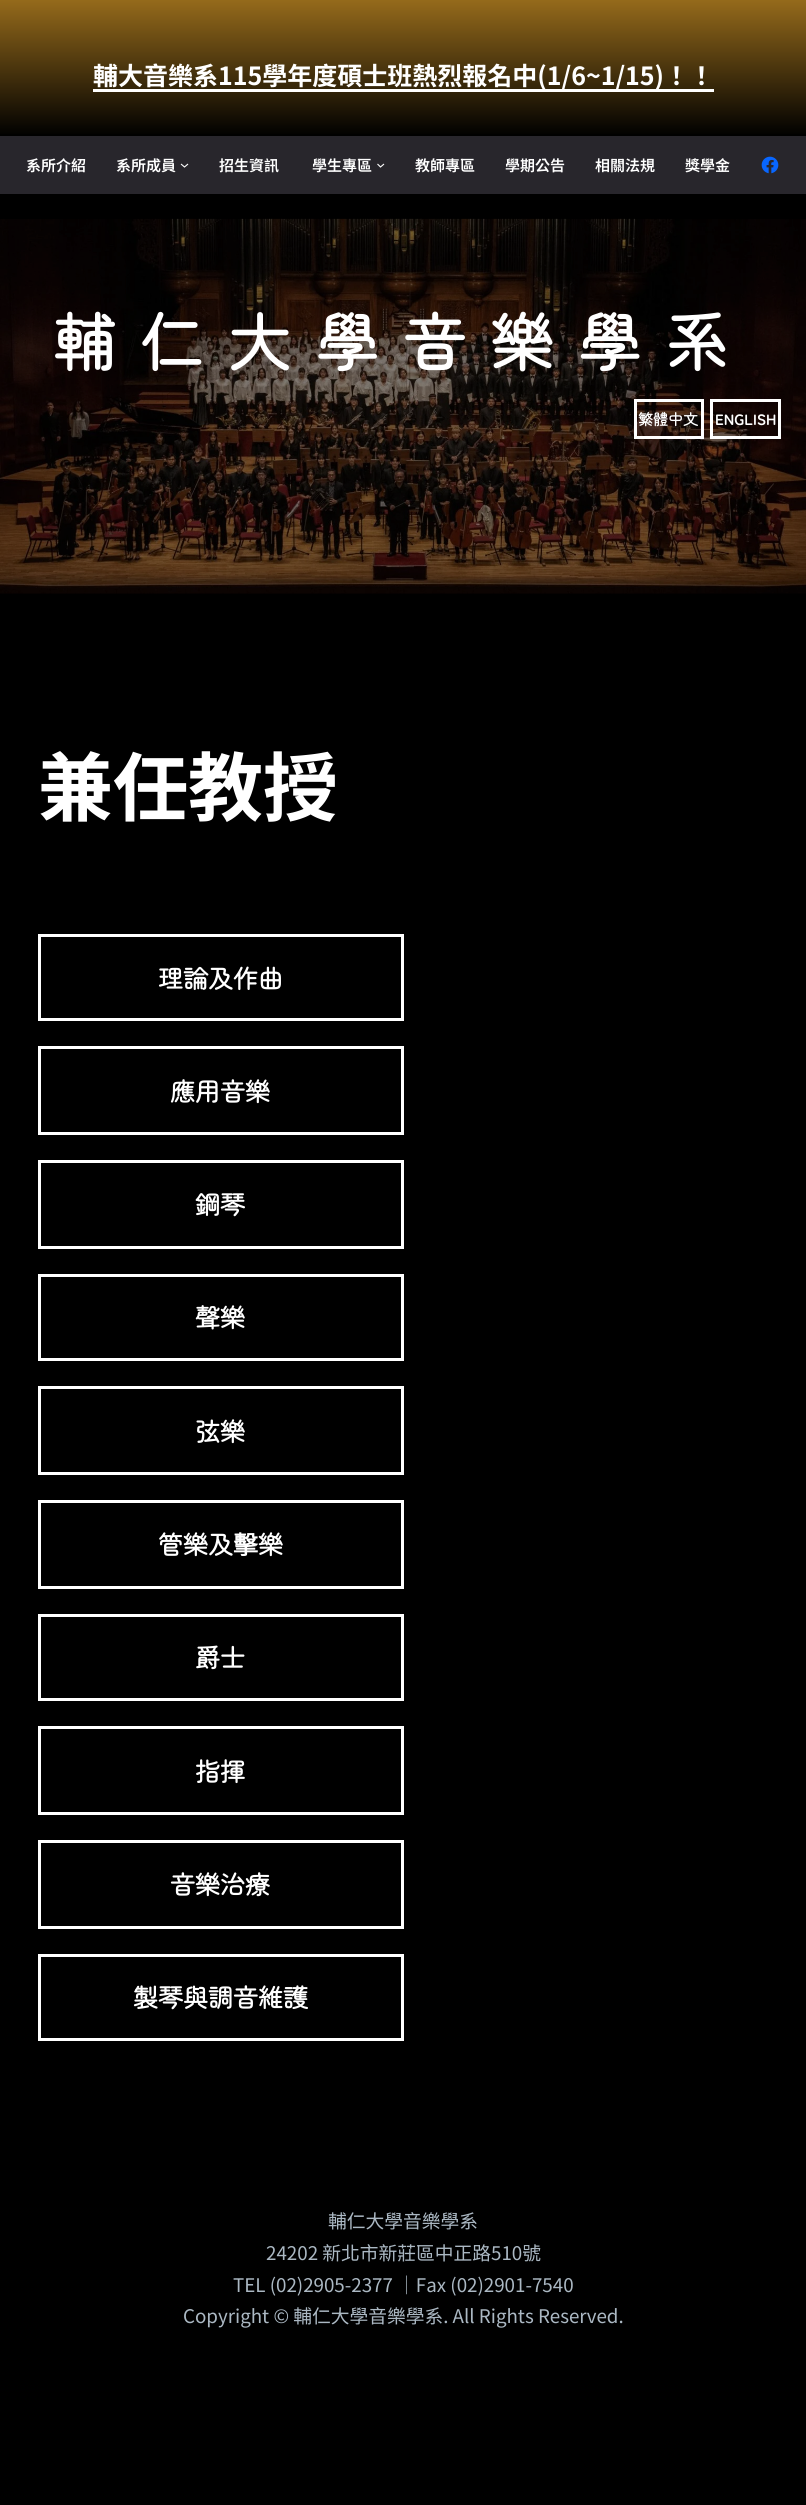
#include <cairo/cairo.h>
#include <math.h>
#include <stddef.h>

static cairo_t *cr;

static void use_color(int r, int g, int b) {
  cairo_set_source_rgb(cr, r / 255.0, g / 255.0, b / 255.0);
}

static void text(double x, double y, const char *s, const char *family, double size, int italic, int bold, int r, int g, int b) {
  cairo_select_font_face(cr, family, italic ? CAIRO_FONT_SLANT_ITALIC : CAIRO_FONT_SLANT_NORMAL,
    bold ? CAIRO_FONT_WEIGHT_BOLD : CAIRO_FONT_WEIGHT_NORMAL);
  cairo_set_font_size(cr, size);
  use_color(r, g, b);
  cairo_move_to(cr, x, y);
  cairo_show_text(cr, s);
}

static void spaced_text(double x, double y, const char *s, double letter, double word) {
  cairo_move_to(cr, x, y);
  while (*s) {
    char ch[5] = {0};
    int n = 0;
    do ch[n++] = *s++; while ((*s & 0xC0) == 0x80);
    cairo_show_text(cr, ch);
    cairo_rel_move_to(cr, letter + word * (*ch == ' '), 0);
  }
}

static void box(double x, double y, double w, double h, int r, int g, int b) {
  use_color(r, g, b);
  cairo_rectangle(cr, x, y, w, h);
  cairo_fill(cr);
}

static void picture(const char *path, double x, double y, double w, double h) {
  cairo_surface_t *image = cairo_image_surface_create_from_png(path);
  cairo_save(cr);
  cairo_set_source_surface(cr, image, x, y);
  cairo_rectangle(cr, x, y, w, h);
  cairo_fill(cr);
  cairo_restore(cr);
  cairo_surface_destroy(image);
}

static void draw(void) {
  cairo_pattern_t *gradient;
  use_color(0, 0, 0);
  cairo_paint(cr);
  gradient = cairo_pattern_create_linear(403, 0, 403, 136);
  cairo_pattern_add_color_stop_rgba(gradient, 0, 0.584, 0.416, 0.106, 1);
  cairo_pattern_add_color_stop_rgba(gradient, 1, 0, 0, 0, 1);
  cairo_set_source(cr, gradient);
  cairo_pattern_destroy(gradient);
  cairo_rectangle(cr, 0, 0, 806, 134);
  cairo_fill(cr);
  box(93, 89, 621, 3, 255, 255, 255);
  box(0, 136, 806, 58, 40, 38, 44);
  cairo_new_path(cr);
  cairo_move_to(cr, 181, 164);
  cairo_line_to(cr, 184.5, 167);
  cairo_line_to(cr, 188, 164);
  use_color(255, 255, 255);
  cairo_set_line_width(cr, 1.1);
  cairo_stroke(cr);
  cairo_new_path(cr);
  cairo_move_to(cr, 377.5, 164);
  cairo_line_to(cr, 380.5, 167);
  cairo_line_to(cr, 384, 164);
  cairo_stroke(cr);
  picture("img_01.png", 761, 156, 18, 18);
  picture("img_02.png", 0, 218, 806, 376);
  cairo_rectangle(cr, 635.5, 400.5, 67, 37);
  cairo_set_line_width(cr, 3);
  cairo_stroke(cr);
  cairo_rectangle(cr, 711.5, 400.5, 68, 37);
  cairo_stroke(cr);
  cairo_rectangle(cr, 39.5, 935.5, 363, 84);
  cairo_stroke(cr);
  cairo_rectangle(cr, 39.5, 1047.5, 363, 86);
  cairo_stroke(cr);
  cairo_rectangle(cr, 39.5, 1161.5, 363, 86);
  cairo_stroke(cr);
  cairo_rectangle(cr, 39.5, 1275.5, 363, 84);
  cairo_stroke(cr);
  cairo_rectangle(cr, 39.5, 1387.5, 363, 86);
  cairo_stroke(cr);
  cairo_rectangle(cr, 39.5, 1501.5, 363, 86);
  cairo_stroke(cr);
  cairo_rectangle(cr, 39.5, 1615.5, 363, 84);
  cairo_stroke(cr);
  cairo_rectangle(cr, 39.5, 1727.5, 363, 86);
  cairo_stroke(cr);
  cairo_rectangle(cr, 39.5, 1841.5, 363, 86);
  cairo_stroke(cr);
  cairo_rectangle(cr, 39.5, 1955.5, 363, 84);
  cairo_stroke(cr);
  text(93, 85, "輔大音樂系115學年度碩士班熱烈報名中(1/6~1/15)！！", "Noto Sans TC", 25, 0, 1, 255, 255, 255);
  text(26, 171, "系所介紹", "Noto Sans TC SemiBold", 15, 0, 0, 255, 255, 255);
  text(116, 171, "系所成員", "Noto Sans TC SemiBold", 15, 0, 0, 255, 255, 255);
  text(219, 171, "招生資訊", "Noto Sans TC SemiBold", 15, 0, 0, 255, 255, 255);
  text(312, 171, "學生專區", "Noto Sans TC SemiBold", 15, 0, 0, 255, 255, 255);
  text(415, 171, "教師專區", "Noto Sans TC SemiBold", 15, 0, 0, 255, 255, 255);
  text(505, 171, "學期公告", "Noto Sans TC SemiBold", 15, 0, 0, 255, 255, 255);
  text(595, 171, "相關法規", "Noto Sans TC SemiBold", 15, 0, 0, 255, 255, 255);
  text(685, 171, "獎學金", "Noto Sans TC SemiBold", 15, 0, 0, 255, 255, 255);
  cairo_select_font_face(cr, "Zen Maru Gothic", CAIRO_FONT_SLANT_NORMAL, CAIRO_FONT_WEIGHT_BOLD);
  cairo_set_font_size(cr, 62.5);
  spaced_text(53, 366, "輔仁大學音樂學系", 25, 0);
  text(638, 425, "繁體中文", "Zen Maru Gothic", 15, 0, 1, 255, 255, 255);
  text(715, 425, "ENGLISH", "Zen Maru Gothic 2", 15, 0, 1, 255, 255, 255);
  text(38, 815, "兼任教授", "Noto Sans TC", 75, 0, 1, 255, 255, 255);
  text(158, 988, "理論及作曲", "Zen Maru Gothic", 25, 0, 1, 255, 255, 255);
  text(170, 1101, "應用音樂", "Zen Maru Gothic", 25, 0, 1, 255, 255, 255);
  text(195, 1214, "鋼琴", "Zen Maru Gothic", 25, 0, 1, 255, 255, 255);
  text(195, 1327, "聲樂", "Zen Maru Gothic", 25, 0, 1, 255, 255, 255);
  text(195, 1441, "弦樂", "Zen Maru Gothic", 25, 0, 1, 255, 255, 255);
  text(158, 1554, "管樂及", "Zen Maru Gothic", 25, 0, 1, 255, 255, 255);
  text(233, 1554, "擊", "Noto Sans CJK TC", 25, 0, 1, 255, 255, 255);
  text(258, 1554, "樂", "Zen Maru Gothic", 25, 0, 1, 255, 255, 255);
  text(195, 1667, "爵士", "Zen Maru Gothic", 25, 0, 1, 255, 255, 255);
  text(195, 1781, "指揮", "Zen Maru Gothic", 25, 0, 1, 255, 255, 255);
  text(170, 1894, "音樂治療", "Zen Maru Gothic", 25, 0, 1, 255, 255, 255);
  text(133, 2007, "製琴與調音維護", "Zen Maru Gothic", 25, 0, 1, 255, 255, 255);
  text(328, 2228, "輔仁大學音樂學系", "Noto Sans TC", 18.75, 0, 0, 171, 184, 195);
  text(266, 2260, "24202 新北市新莊區中正路510號", "Noto Sans TC", 18.75, 0, 0, 171, 184, 195);
  text(233, 2292, "TEL (02)2905-2377 │Fax (02)2901-7540", "Noto Sans TC", 18.75, 0, 0, 171, 184, 195);
  text(183, 2323, "Copyright © 輔仁大學音樂學系. All Rights Reserved.", "Noto Sans TC", 18.75, 0, 0, 171, 184, 195);
}

int main(void) {
  cairo_surface_t *surface = cairo_image_surface_create(CAIRO_FORMAT_RGB24, 806, 2505);
  cr = cairo_create(surface);
  cairo_font_options_t *options = cairo_font_options_create();
  cairo_font_options_set_hint_metrics(options, CAIRO_HINT_METRICS_OFF);
  cairo_font_options_set_hint_style(options, CAIRO_HINT_STYLE_NONE);
  cairo_set_font_options(cr, options);
  cairo_set_miter_limit(cr, 4);
  draw();
  cairo_surface_write_to_png(surface, "out.png");
  cairo_font_options_destroy(options);
  cairo_destroy(cr);
  cairo_surface_destroy(surface);
  return 0;
}
